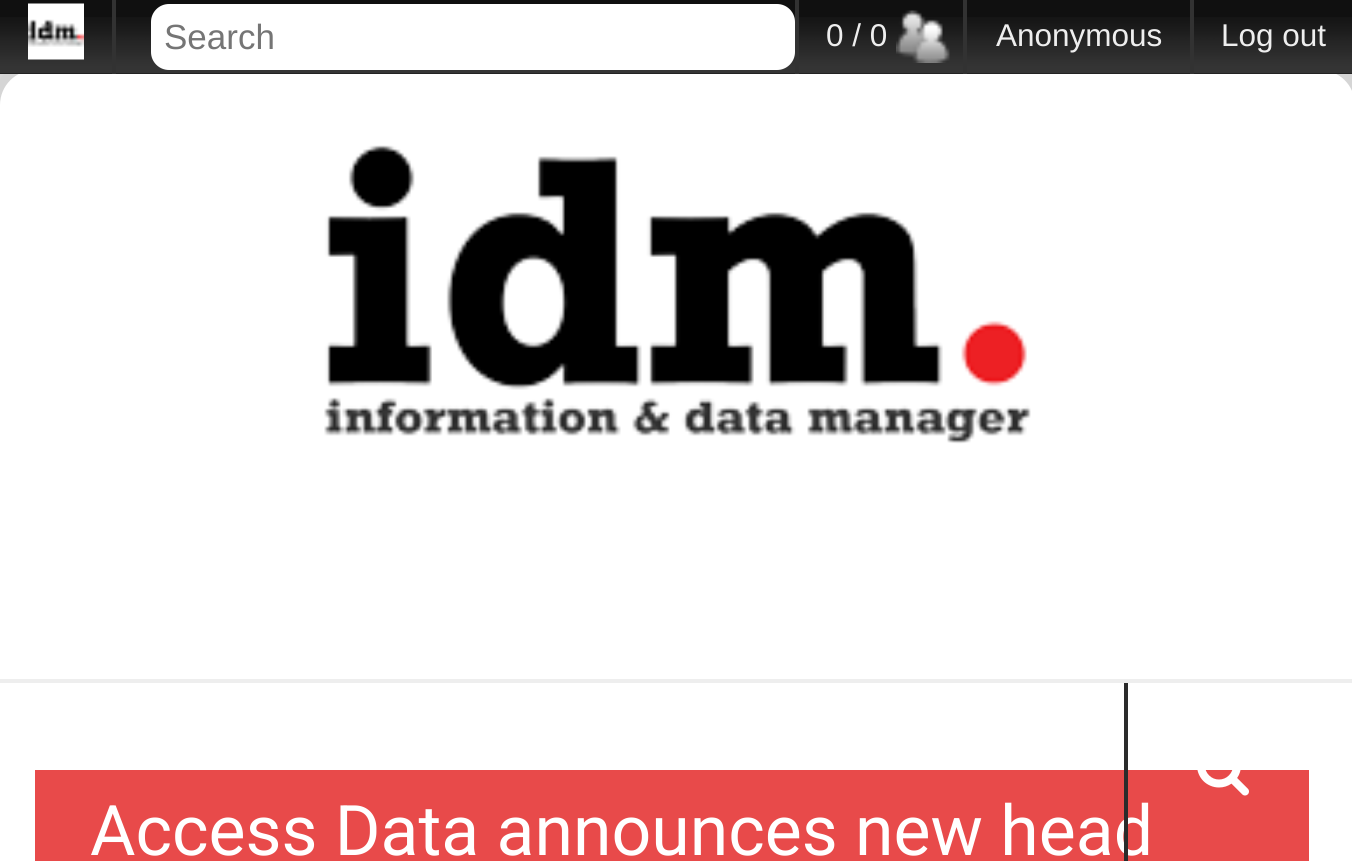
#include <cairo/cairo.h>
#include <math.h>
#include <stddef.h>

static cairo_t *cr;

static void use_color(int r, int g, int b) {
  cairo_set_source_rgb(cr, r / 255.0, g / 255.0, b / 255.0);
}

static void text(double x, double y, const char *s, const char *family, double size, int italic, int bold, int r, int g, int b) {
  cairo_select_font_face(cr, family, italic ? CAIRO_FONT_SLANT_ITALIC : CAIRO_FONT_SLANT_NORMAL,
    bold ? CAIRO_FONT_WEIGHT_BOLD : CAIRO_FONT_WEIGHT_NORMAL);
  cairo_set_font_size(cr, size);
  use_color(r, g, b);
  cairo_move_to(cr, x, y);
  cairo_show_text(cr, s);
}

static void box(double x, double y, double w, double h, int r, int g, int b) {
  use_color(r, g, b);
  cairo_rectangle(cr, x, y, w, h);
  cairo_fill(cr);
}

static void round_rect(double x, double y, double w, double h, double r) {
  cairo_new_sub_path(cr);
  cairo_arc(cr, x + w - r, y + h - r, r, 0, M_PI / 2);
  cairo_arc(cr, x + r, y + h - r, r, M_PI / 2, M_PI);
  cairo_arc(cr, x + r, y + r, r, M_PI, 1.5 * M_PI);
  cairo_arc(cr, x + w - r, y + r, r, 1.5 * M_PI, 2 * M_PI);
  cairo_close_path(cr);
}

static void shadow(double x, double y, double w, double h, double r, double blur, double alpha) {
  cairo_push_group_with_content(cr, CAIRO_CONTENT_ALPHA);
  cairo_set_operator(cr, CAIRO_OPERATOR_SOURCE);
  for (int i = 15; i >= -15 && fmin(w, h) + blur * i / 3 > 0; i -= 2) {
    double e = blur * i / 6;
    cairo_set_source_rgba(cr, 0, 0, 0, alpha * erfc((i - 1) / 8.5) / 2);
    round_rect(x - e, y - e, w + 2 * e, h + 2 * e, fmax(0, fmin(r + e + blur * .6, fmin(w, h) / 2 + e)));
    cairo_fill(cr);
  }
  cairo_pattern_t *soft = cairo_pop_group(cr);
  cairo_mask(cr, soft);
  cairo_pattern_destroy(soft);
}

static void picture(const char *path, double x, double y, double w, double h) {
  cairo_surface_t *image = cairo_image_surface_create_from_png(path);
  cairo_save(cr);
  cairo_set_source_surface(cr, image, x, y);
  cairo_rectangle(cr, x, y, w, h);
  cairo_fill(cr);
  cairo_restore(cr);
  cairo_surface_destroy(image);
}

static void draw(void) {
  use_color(221, 221, 221);
  cairo_paint(cr);
  use_color(0, 0, 0);
  shadow(0, 70, 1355, 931, 35, 35, 0.1);
  use_color(255, 255, 255);
  round_rect(0, 70, 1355, 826, 35);
  cairo_fill(cr);
  box(0, 0, 1352, 74, 16, 16, 16);
  picture("img_01.png", 0, 17, 1352, 57);
  box(112, 0, 4, 74, 50, 50, 50);
  picture("img_02.png", 28, 3, 56, 57);
  use_color(255, 255, 255);
  round_rect(151, 4, 644, 66, 18);
  cairo_fill(cr);
  picture("img_03.png", 896, 10, 54, 53);
  box(795, 0, 4, 74, 50, 50, 50);
  box(963, 0, 4, 74, 50, 50, 50);
  box(1190, 0, 4, 74, 50, 50, 50);
  picture("img_04.png", 324, 145, 707, 299);
  box(0, 679, 1352, 4, 238, 238, 238);
  box(35, 770, 1274, 91, 232, 74, 74);
  picture("img_05.png", 1197, 770, 52, 26);
  text(164, 49, "Search", "Liberation Sans", 35, 0, 0, 117, 117, 117);
  text(826, 46, "0 / 0", "Liberation Sans", 31.5, 0, 0, 238, 238, 238);
  text(996, 46, "Anonymous", "Liberation Sans", 31.5, 0, 0, 238, 238, 238);
  text(1221, 46, "Log out", "Liberation Sans", 31.5, 0, 0, 238, 238, 238);
  text(90, 855, "Access Data announces new head", "Roboto", 69.75, 0, 0, 255, 255, 255);
  box(1124, 683, 4, 178, 43, 43, 43);
}

int main(void) {
  cairo_surface_t *surface = cairo_image_surface_create(CAIRO_FORMAT_RGB24, 1352, 861);
  cr = cairo_create(surface);
  cairo_font_options_t *options = cairo_font_options_create();
  cairo_font_options_set_hint_metrics(options, CAIRO_HINT_METRICS_OFF);
  cairo_font_options_set_hint_style(options, CAIRO_HINT_STYLE_NONE);
  cairo_set_font_options(cr, options);
  cairo_set_miter_limit(cr, 4);
  draw();
  cairo_surface_write_to_png(surface, "out.png");
  cairo_font_options_destroy(options);
  cairo_destroy(cr);
  cairo_surface_destroy(surface);
  return 0;
}
